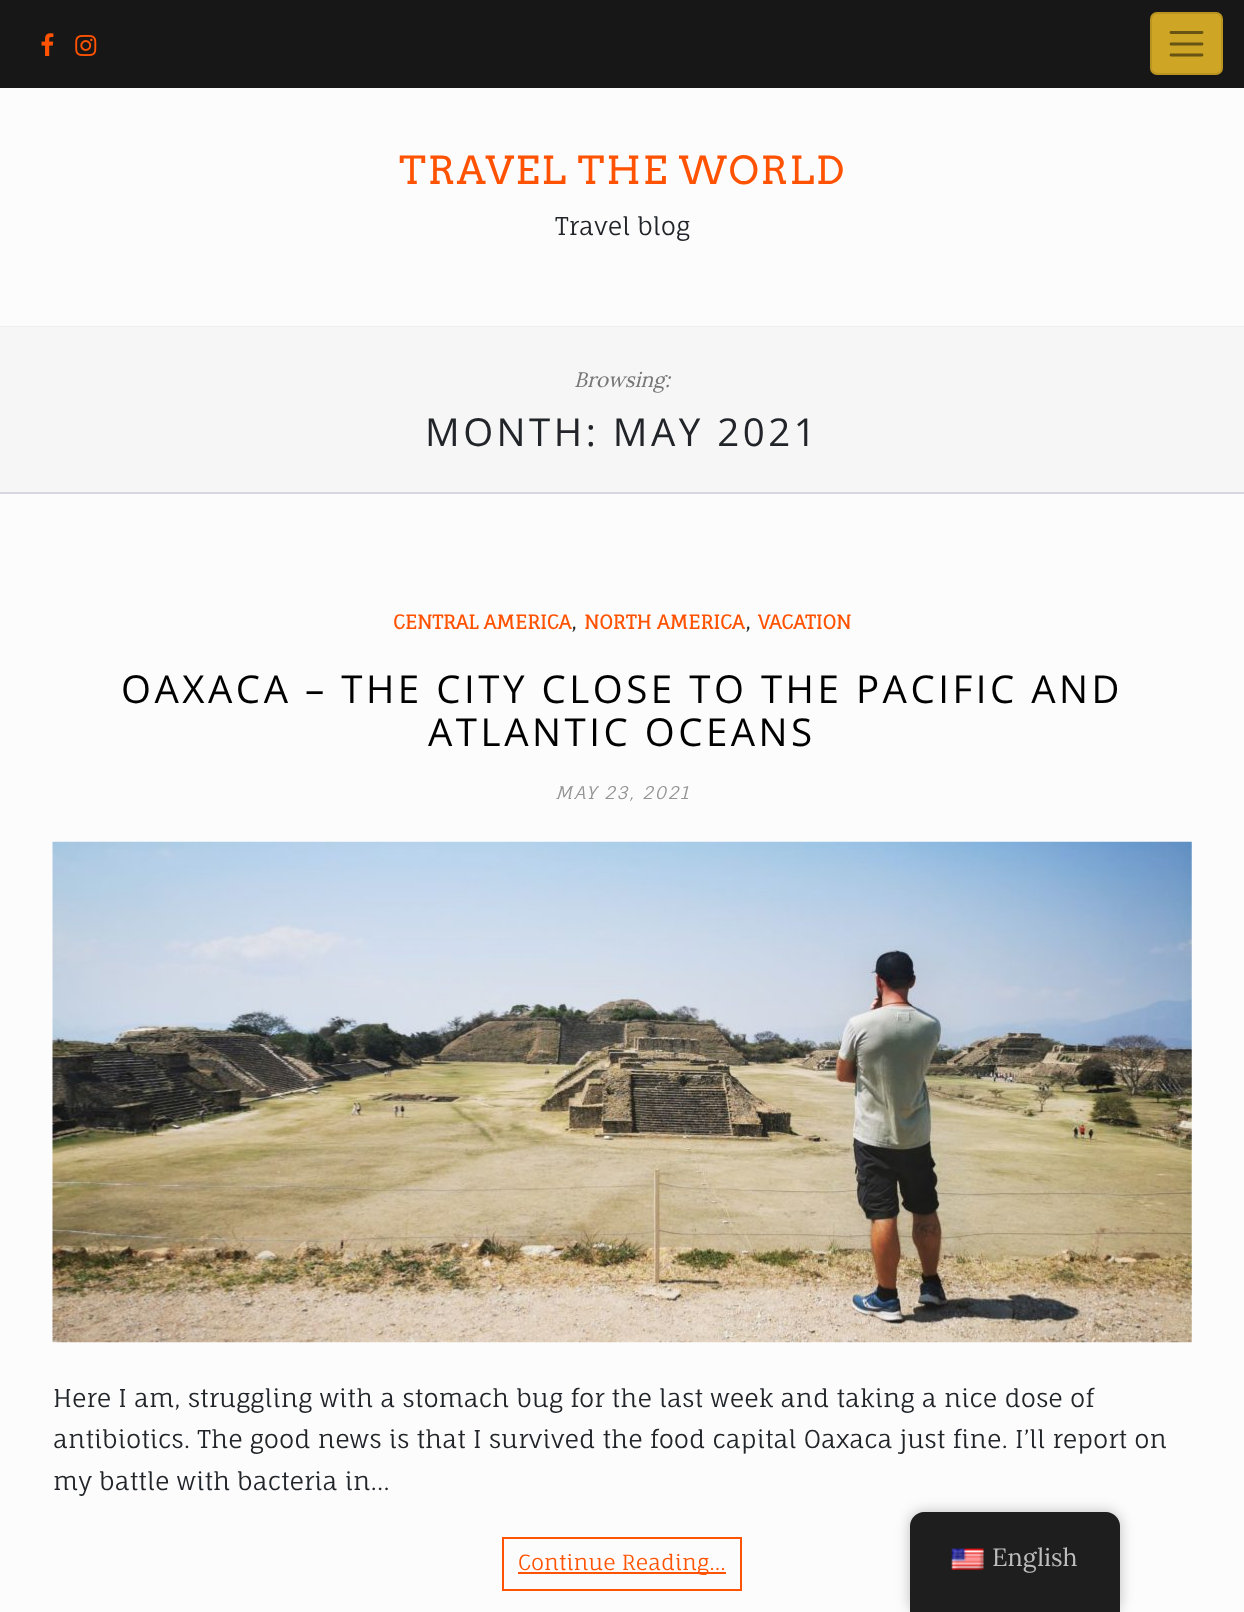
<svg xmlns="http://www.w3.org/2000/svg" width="1244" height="1612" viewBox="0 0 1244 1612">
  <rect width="100%" height="100%" fill="rgb(252,252,252)"/>
  <rect x="0" y="0" width="1244" height="88" fill="rgb(23,23,23)"/>
  <image x="41" y="33" width="13" height="23" href="pic1.png"/>
  <image x="75" y="35" width="22" height="21" href="pic2.png"/>
  <rect x="1150" y="12" width="73" height="63" rx="7" fill="rgb(206,165,37)"/>
  <rect x="1151" y="13" width="71" height="61" rx="6" fill="none" stroke="rgba(0,0,0,0.1)" stroke-width="2"/>
  <path d="M1171 32.5H1202M1171 44H1202M1171 55H1202" fill="none" stroke="rgb(103,83,19)" stroke-width="2.8" stroke-linecap="round"/>
  <rect x="0" y="326" width="1244" height="1" fill="rgb(238,238,238)"/>
  <text x="399" y="184" font-family="Arvo" font-size="38.5" letter-spacing="1.75" fill="rgb(255,83,3)">TRAVEL THE WORLD</text>
  <text x="555" y="235" font-family="Fauna One" font-size="24.5" fill="rgb(33,37,41)">Travel blog</text>
  <rect x="0" y="327" width="1244" height="165" fill="rgb(246,246,246)"/>
  <rect x="0" y="492" width="1244" height="2" fill="rgb(215,215,224)"/>
  <text x="574" y="387" font-family="Lora" font-size="21" font-style="italic" fill="rgb(118,118,118)">Browsing:</text>
  <text x="425" y="446" font-family="Open Sans" font-size="38.5" letter-spacing="3.5" fill="rgb(33,37,41)">MONTH: MAY 2021</text>
  <text x="393" y="629" font-family="Fauna One" font-size="19.25" font-weight="bold" fill="rgb(255,83,3)">CENTRAL AMERICA</text>
  <text x="571" y="629" font-family="Fauna One" font-size="24.5" fill="rgb(33,37,41)">,</text>
  <text x="584" y="629" font-family="Fauna One" font-size="19.25" font-weight="bold" fill="rgb(255,83,3)">NORTH AMERICA</text>
  <text x="745" y="629" font-family="Fauna One" font-size="24.5" fill="rgb(33,37,41)">,</text>
  <text x="758" y="629" font-family="Fauna One" font-size="19.25" font-weight="bold" fill="rgb(255,83,3)">VACATION</text>
  <g font-family="Open Sans" font-size="38.5" letter-spacing="3.5" fill="rgb(0,0,0)">
    <text x="121" y="703">OAXACA – THE CITY CLOSE TO THE PACIFIC AND</text>
    <text x="428" y="746">ATLANTIC OCEANS</text>
  </g>
  <text x="555" y="799" font-family="Fauna One" font-size="17.5" font-style="italic" letter-spacing="1.75" fill="rgb(147,147,147)">MAY 23, 2021</text>
  <image x="52" y="841" width="1140" height="502" href="pic3.png"/>
  <g font-family="Fauna One" font-size="24.5" fill="rgb(33,37,41)">
    <text>
      <tspan x="53" y="1407">Here I am, struggling with a stomach bug for the last week and taking a nice dose of</tspan>
      <tspan x="53" y="1448">antibiotics. The good news is that I survived the food capital Oaxaca just fine. I’ll report on</tspan>
      <tspan x="53" y="1490">my battle with bacteria in…</tspan>
    </text>
  </g>
  <rect x="503" y="1538" width="238" height="52" fill="none" stroke="rgb(255,83,3)" stroke-width="2"/>
  <rect x="518" y="1572" width="208" height="2" fill="rgb(255,83,3)"/>
  <text x="518" y="1570" font-family="Fauna One" font-size="21" fill="rgb(255,83,3)">Continue Reading…</text>
  <rect x="910" y="1512" width="210" height="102" rx="14" fill="rgba(0,0,0,0.25)" filter="blur(7px)"/>
  <path d="M924 1512H1106C1113.5 1512 1120 1518.5 1120 1526V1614H910V1526C910 1518.5 916.5 1512 924 1512Z" fill="rgb(30,30,30)"/>
  <image x="951" y="1548" width="33" height="22" href="pic4.png"/>
  <text x="992" y="1566" font-family="Lora" font-size="25" fill="rgb(189,189,189)">English</text>
</svg>
